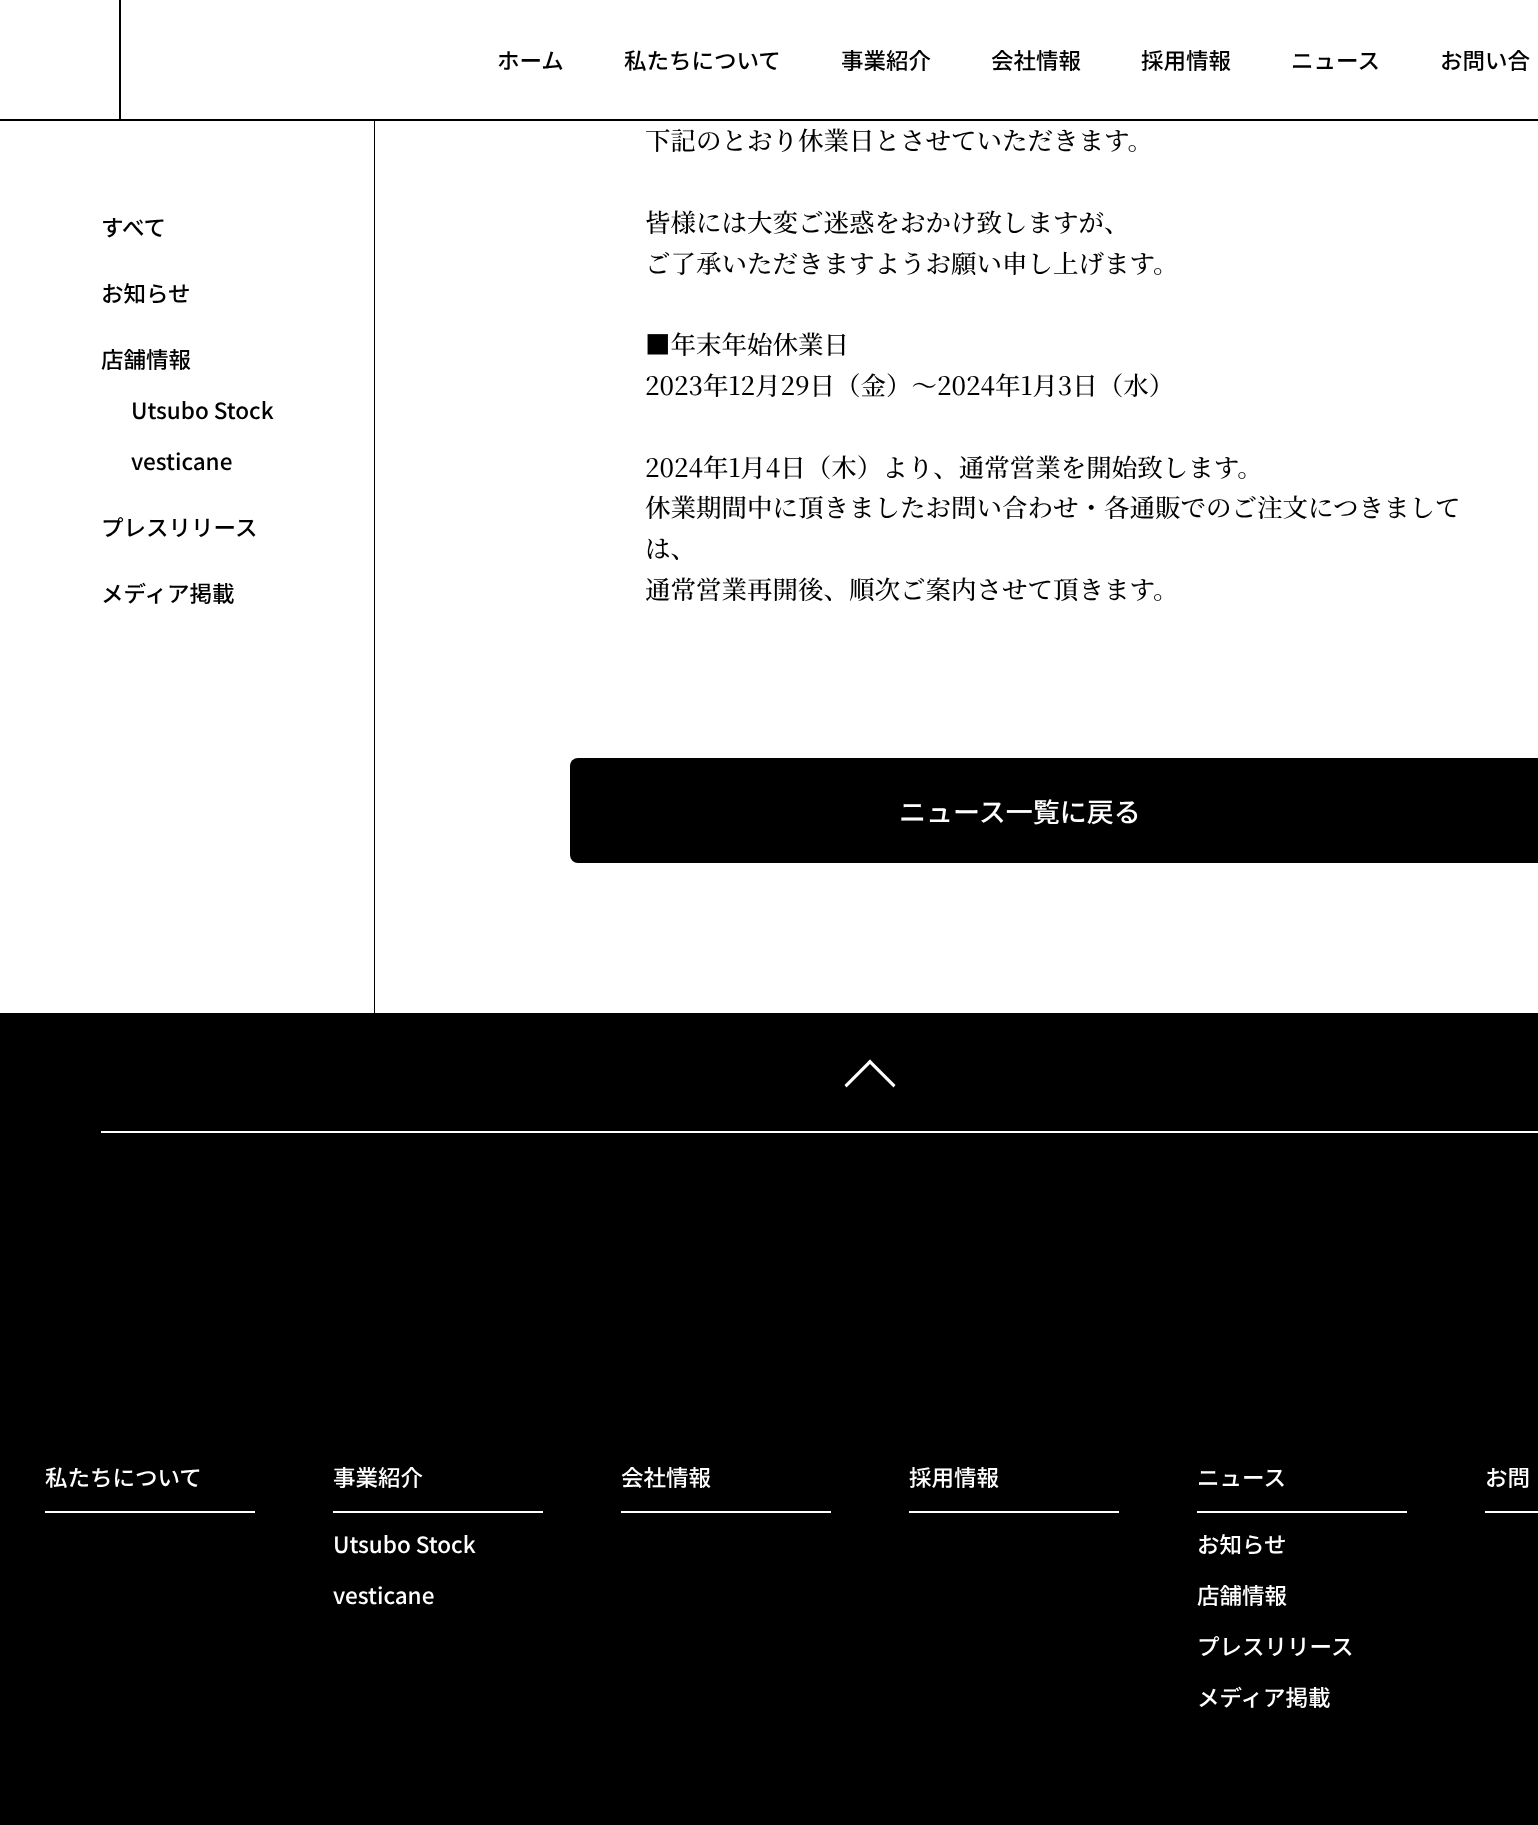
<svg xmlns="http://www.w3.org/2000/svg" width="1538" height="1825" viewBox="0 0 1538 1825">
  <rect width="100%" height="100%" fill="rgb(255,255,255)"/>
  <rect x="0" y="119" width="1538" height="2" fill="rgb(0,0,0)"/>
  <rect x="119" y="0" width="2" height="120" fill="rgb(0,0,0)"/>
  <g font-family="Noto Sans JP" font-size="22.5" font-weight="500" fill="rgb(0,0,0)">
    <text x="497" y="69">ホーム</text>
    <text x="624" y="69">私たちについて</text>
    <text x="841" y="69">事業紹介</text>
    <text x="991" y="69">会社情報</text>
    <text x="1141" y="69">採用情報</text>
    <text x="1291" y="69">ニュース</text>
    <text x="1440" y="69">お問い合</text>
  </g>
  <rect x="374" y="121" width="1" height="892" fill="rgb(0,0,0)"/>
  <g font-family="Noto Sans JP" font-size="22.5" font-weight="500" fill="rgb(0,0,0)">
    <text x="101" y="236">すべて</text>
    <text x="101" y="302">お知らせ</text>
    <text x="101" y="368">店舗情報</text>
    <text x="131" y="419">Utsubo Stock</text>
    <text x="131" y="470">vesticane</text>
    <text x="101" y="536">プレスリリース</text>
    <text x="101" y="602">メディア掲載</text>
  </g>
  <g font-family="Noto Serif JP" font-size="25.5" font-weight="500" fill="rgb(0,0,0)">
    <text x="645" y="150">下記のとおり休業日とさせていただきます。</text>
    <text>
      <tspan x="645" y="232">皆様には大変ご迷惑をおかけ致しますが、</tspan>
      <tspan x="645" y="273">ご了承いただきますようお願い申し上げます。</tspan>
    </text>
    <text>
      <tspan x="645" y="354">■年末年始休業日</tspan>
      <tspan x="645" y="395">2023年12月29日（金）～2024年1月3日（水）</tspan>
    </text>
    <text>
      <tspan x="645" y="477">2024年1月4日（木）より、通常営業を開始致します。</tspan>
      <tspan x="645" y="517">休業期間中に頂きましたお問い合わせ・各通販でのご注文につきまして</tspan>
      <tspan x="645" y="558">は、</tspan>
      <tspan x="645" y="599">通常営業再開後、順次ご案内させて頂きます。</tspan>
    </text>
  </g>
  <rect x="570" y="758" width="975" height="105" rx="8" fill="rgb(0,0,0)"/>
  <text x="899" y="822" font-family="Noto Sans JP" font-size="27" font-weight="500" fill="rgb(255,255,255)">ニュース一覧に戻る</text>
  <rect x="0" y="1013" width="1538" height="812" fill="rgb(0,0,0)"/>
  <path d="M844.5 1085L870 1059.5L872 1062L846.5 1087.5Z" fill="rgb(255,255,255)"/>
  <path d="M868 1062L870 1059.5L895.5 1085L893.5 1087.5Z" fill="rgb(255,255,255)"/>
  <rect x="101" y="1131" width="1437" height="2" fill="rgb(255,255,255)"/>
  <rect x="45" y="1511" width="210" height="2" fill="rgb(255,255,255)"/>
  <text x="45" y="1486" font-family="Noto Sans JP" font-size="22.5" font-weight="500" fill="rgb(255,255,255)">私たちについて</text>
  <rect x="333" y="1511" width="210" height="2" fill="rgb(255,255,255)"/>
  <g font-family="Noto Sans JP" font-size="22.5" font-weight="500" fill="rgb(255,255,255)">
    <text x="333" y="1486">事業紹介</text>
    <text x="333" y="1553">Utsubo Stock</text>
    <text x="333" y="1604">vesticane</text>
  </g>
  <rect x="621" y="1511" width="210" height="2" fill="rgb(255,255,255)"/>
  <text x="621" y="1486" font-family="Noto Sans JP" font-size="22.5" font-weight="500" fill="rgb(255,255,255)">会社情報</text>
  <rect x="909" y="1511" width="210" height="2" fill="rgb(255,255,255)"/>
  <text x="909" y="1486" font-family="Noto Sans JP" font-size="22.5" font-weight="500" fill="rgb(255,255,255)">採用情報</text>
  <rect x="1197" y="1511" width="210" height="2" fill="rgb(255,255,255)"/>
  <g font-family="Noto Sans JP" font-size="22.5" font-weight="500" fill="rgb(255,255,255)">
    <text x="1197" y="1486">ニュース</text>
    <text x="1197" y="1553">お知らせ</text>
    <text x="1197" y="1604">店舗情報</text>
    <text x="1197" y="1655">プレスリリース</text>
    <text x="1197" y="1706">メディア掲載</text>
  </g>
  <rect x="1485" y="1511" width="53" height="2" fill="rgb(255,255,255)"/>
  <text x="1485" y="1486" font-family="Noto Sans JP" font-size="22.5" font-weight="500" fill="rgb(255,255,255)">お問</text>
</svg>
